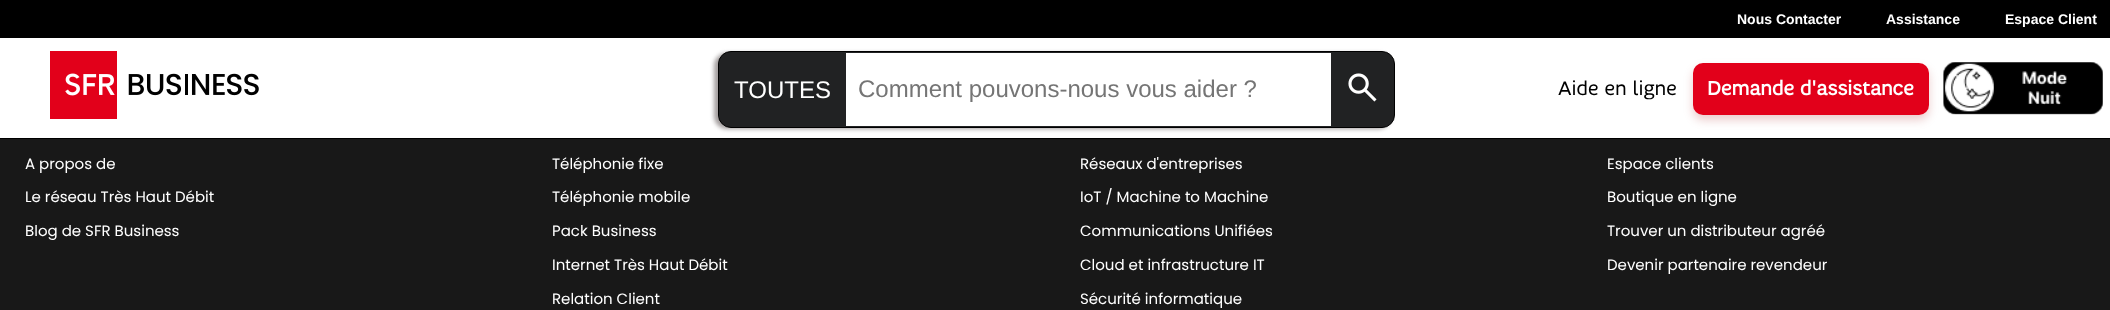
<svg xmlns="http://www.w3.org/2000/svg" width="2110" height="310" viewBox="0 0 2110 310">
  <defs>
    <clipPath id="clip1"><rect x="719" y="53" width="675" height="73" rx="11"/></clipPath>
  </defs>
  <rect width="100%" height="100%" fill="rgb(24,24,24)"/>
  <rect x="0" y="38" width="2110" height="100" fill="rgb(255,255,255)"/>
  <rect x="0" y="138" width="2110" height="1" fill="rgb(0,0,0)"/>
  <rect x="0" y="0" width="2110" height="38" fill="rgb(0,0,0)"/>
  <g font-family="Liberation Sans" font-size="14" font-weight="bold" fill="rgb(255,255,255)">
    <text x="1737" y="24">Nous Contacter</text>
    <text x="1886" y="24">Assistance</text>
    <text x="2005" y="24">Espace Client</text>
  </g>
  <image x="50" y="51" width="209" height="68" href="pic1.png"/>
  <rect x="714" y="53" width="677" height="76" rx="13" fill="rgba(108,99,99,0.63)" filter="blur(2px)"/>
  <rect x="718.5" y="51.5" width="676" height="76" rx="12.5" fill="rgb(33,34,35)" stroke="rgb(0,0,0)"/>
  <g clip-path="url(#clip1)">
    <rect x="719" y="61" width="127" height="57" fill="rgb(33,34,35)"/>
  </g>
  <text x="734" y="98" font-family="Liberation Sans" font-size="24" fill="rgb(255,255,255)">TOUTES</text>
  <rect x="846" y="53" width="485" height="73" fill="rgb(255,255,255)"/>
  <text x="858" y="97" font-family="Liberation Sans" font-size="24" fill="rgb(117,117,117)">Comment pouvons-nous vous aider ?</text>
  <image x="1348" y="73" width="29" height="29" href="pic2.png"/>
  <text x="1558" y="95" font-family="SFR" font-size="20" fill="rgb(0,0,0)">Aide en ligne</text>
  <rect x="1693" y="68" width="236" height="52" rx="10" fill="rgba(153,0,0,0.2)" filter="blur(5px)"/>
  <rect x="1693" y="63" width="236" height="52" rx="10" fill="rgb(226,0,26)"/>
  <text x="1707" y="95" font-family="SFR" font-size="20" font-weight="bold" fill="rgb(255,255,255)">Demande d'assistance</text>
  <rect x="1944" y="63" width="159" height="51" rx="11" fill="rgb(239,239,239)"/>
  <image x="1943" y="62" width="160" height="53" href="pic3.png"/>
  <image x="1943" y="62" width="160" height="52" href="pic4.png"/>
  <g font-family="Poppins" font-size="15" fill="rgb(255,255,255)">
    <text x="25" y="169">A propos de</text>
    <text x="25" y="202">Le réseau Très Haut Débit</text>
    <text x="25" y="236">Blog de SFR Business</text>
    <text x="552" y="169">Téléphonie fixe</text>
    <text x="552" y="202">Téléphonie mobile</text>
    <text x="552" y="236">Pack Business</text>
    <text x="552" y="270">Internet Très Haut Débit</text>
    <text x="552" y="304">Relation Client</text>
    <text x="1080" y="169">Réseaux d'entreprises</text>
    <text x="1080" y="202">IoT / Machine to Machine</text>
    <text x="1080" y="236">Communications Unifiées</text>
    <text x="1080" y="270">Cloud et infrastructure IT</text>
    <text x="1080" y="304">Sécurité informatique</text>
    <text x="1607" y="169">Espace clients</text>
    <text x="1607" y="202">Boutique en ligne</text>
    <text x="1607" y="236">Trouver un distributeur agréé</text>
    <text x="1607" y="270">Devenir partenaire revendeur</text>
  </g>
</svg>
